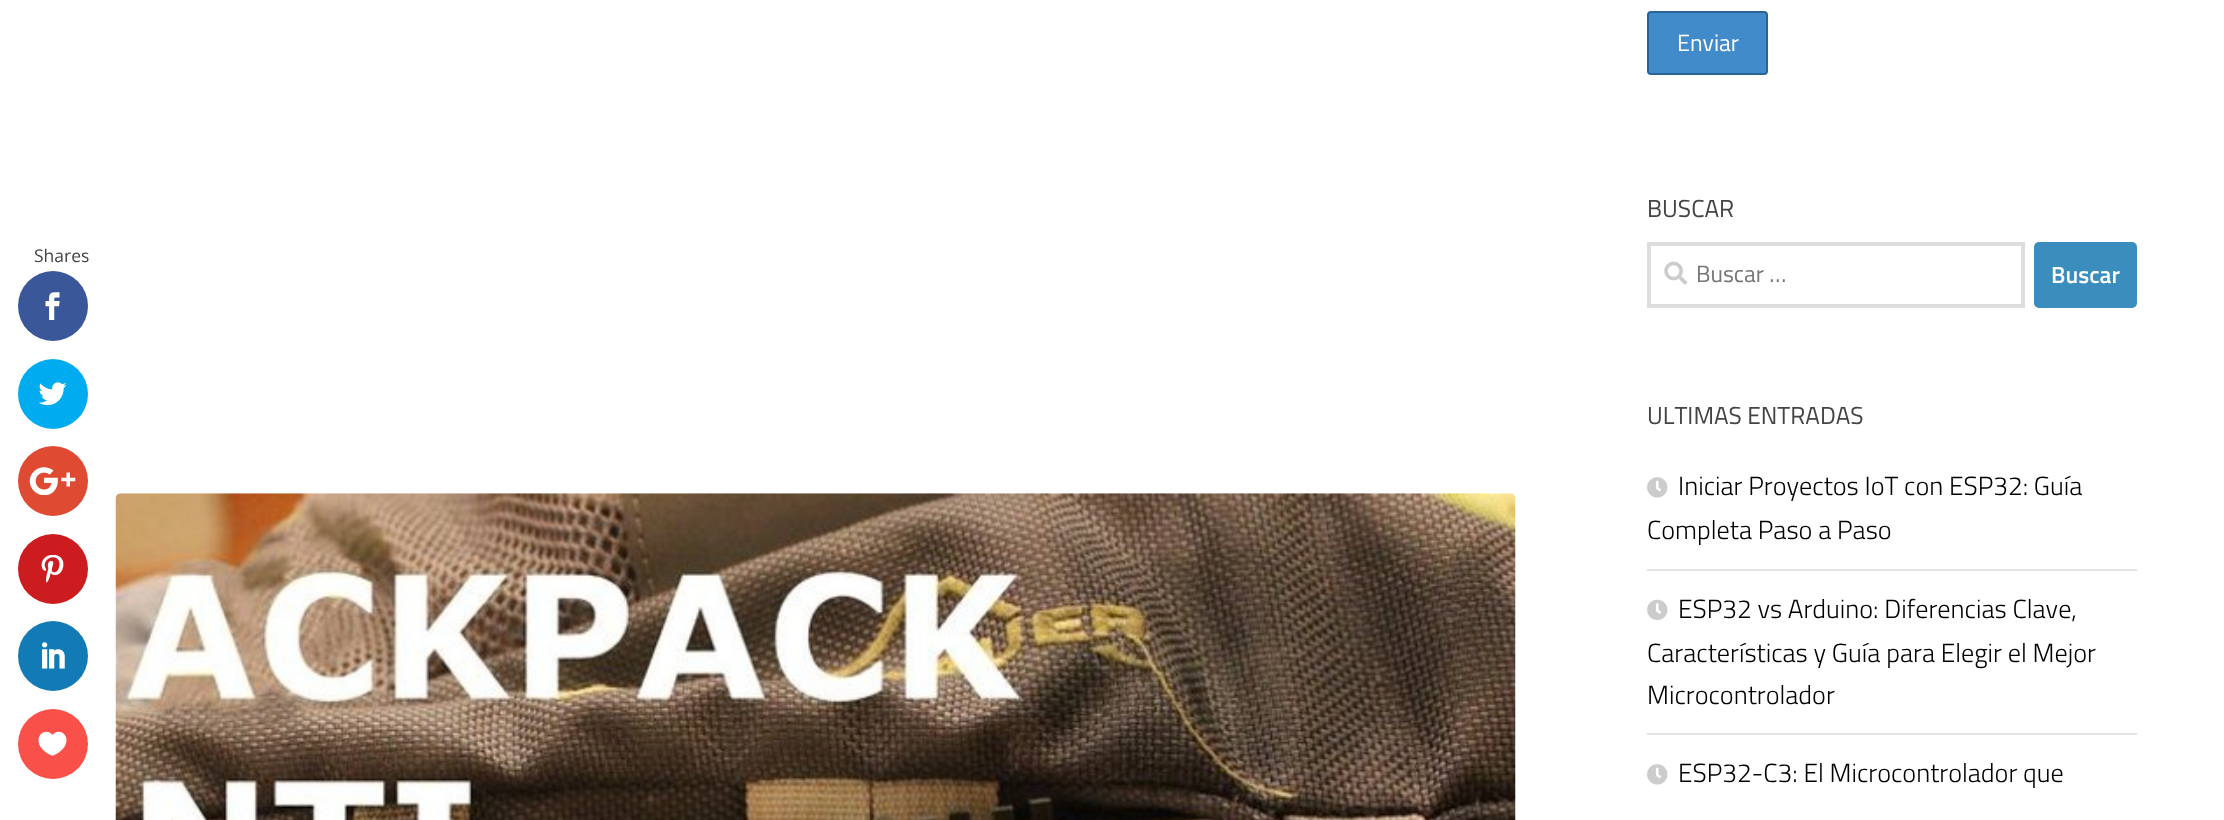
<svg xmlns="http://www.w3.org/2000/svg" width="2224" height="820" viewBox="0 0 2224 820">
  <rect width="100%" height="100%" fill="rgb(255,255,255)"/>
  <text x="34" y="262" font-family="Open Sans" font-size="17.5" fill="rgb(68,68,68)">Shares</text>
  <circle cx="53" cy="306" r="35" fill="rgb(58,87,154)"/>
  <image x="45" y="292" width="15" height="28" href="pic1.png"/>
  <circle cx="53" cy="394" r="35" fill="rgb(0,171,240)"/>
  <image x="38" y="382" width="29" height="24" href="pic2.png"/>
  <circle cx="53" cy="481" r="35" fill="rgb(223,74,50)"/>
  <image x="29" y="467" width="47" height="28" href="pic3.png"/>
  <circle cx="53" cy="569" r="35" fill="rgb(205,28,31)"/>
  <image x="41" y="555" width="23" height="28" href="pic4.png"/>
  <circle cx="53" cy="656" r="35" fill="rgb(18,123,182)"/>
  <image x="42" y="642" width="23" height="27" href="pic5.png"/>
  <circle cx="53" cy="744" r="35" fill="rgb(249,81,73)"/>
  <image x="38" y="731" width="29" height="25" href="pic6.png"/>
  <image x="115" y="493" width="1401" height="327" href="pic7.png"/>
  <rect x="1648" y="12" width="119" height="62" rx="3" fill="rgb(66,139,202)" stroke="rgb(42,100,150)" stroke-width="2"/>
  <text x="1677" y="51" font-family="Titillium" font-size="23.5" fill="rgb(255,255,255)">Enviar</text>
  <text x="1647" y="217" font-family="Titillium" font-size="24.5" fill="rgb(68,68,68)">BUSCAR</text>
  <rect x="1649" y="244" width="374" height="62" fill="none" stroke="rgb(221,221,221)" stroke-width="4"/>
  <image x="1664" y="261" width="24" height="24" href="pic8.png"/>
  <text x="1696" y="282" font-family="Titillium" font-size="23.5" fill="rgb(117,117,117)">Buscar …</text>
  <rect x="2034" y="242" width="103" height="66" rx="5" fill="rgb(59,141,189)"/>
  <text x="2051" y="283" font-family="Titillium" font-size="23.5" font-weight="600" fill="rgb(255,255,255)">Buscar</text>
  <text x="1647" y="424" font-family="Titillium" font-size="24.5" fill="rgb(68,68,68)">ULTIMAS ENTRADAS</text>
  <rect x="1647" y="569" width="490" height="2" fill="rgb(228,228,228)"/>
  <image x="1647" y="477" width="21" height="21" href="pic9.png"/>
  <g font-family="Titillium" font-size="26.25" font-weight="300" fill="rgb(0,0,0)">
    <text x="1678" y="495">Iniciar Proyectos IoT con ESP32: Guía</text>
    <text x="1647" y="539">Completa Paso a Paso</text>
  </g>
  <rect x="1647" y="733" width="490" height="2" fill="rgb(228,228,228)"/>
  <image x="1647" y="599" width="21" height="21" href="pic10.png"/>
  <g font-family="Titillium" font-size="26.25" font-weight="300" fill="rgb(0,0,0)">
    <text x="1678" y="618">ESP32 vs Arduino: Diferencias Clave,</text>
    <text>
      <tspan x="1647" y="662">Características y Guía para Elegir el Mejor</tspan>
      <tspan x="1647" y="704">Microcontrolador</tspan>
    </text>
  </g>
  <image x="1647" y="764" width="21" height="21" href="pic9.png"/>
  <text x="1678" y="782" font-family="Titillium" font-size="26.25" font-weight="300" fill="rgb(0,0,0)">ESP32-C3: El Microcontrolador que</text>
</svg>
